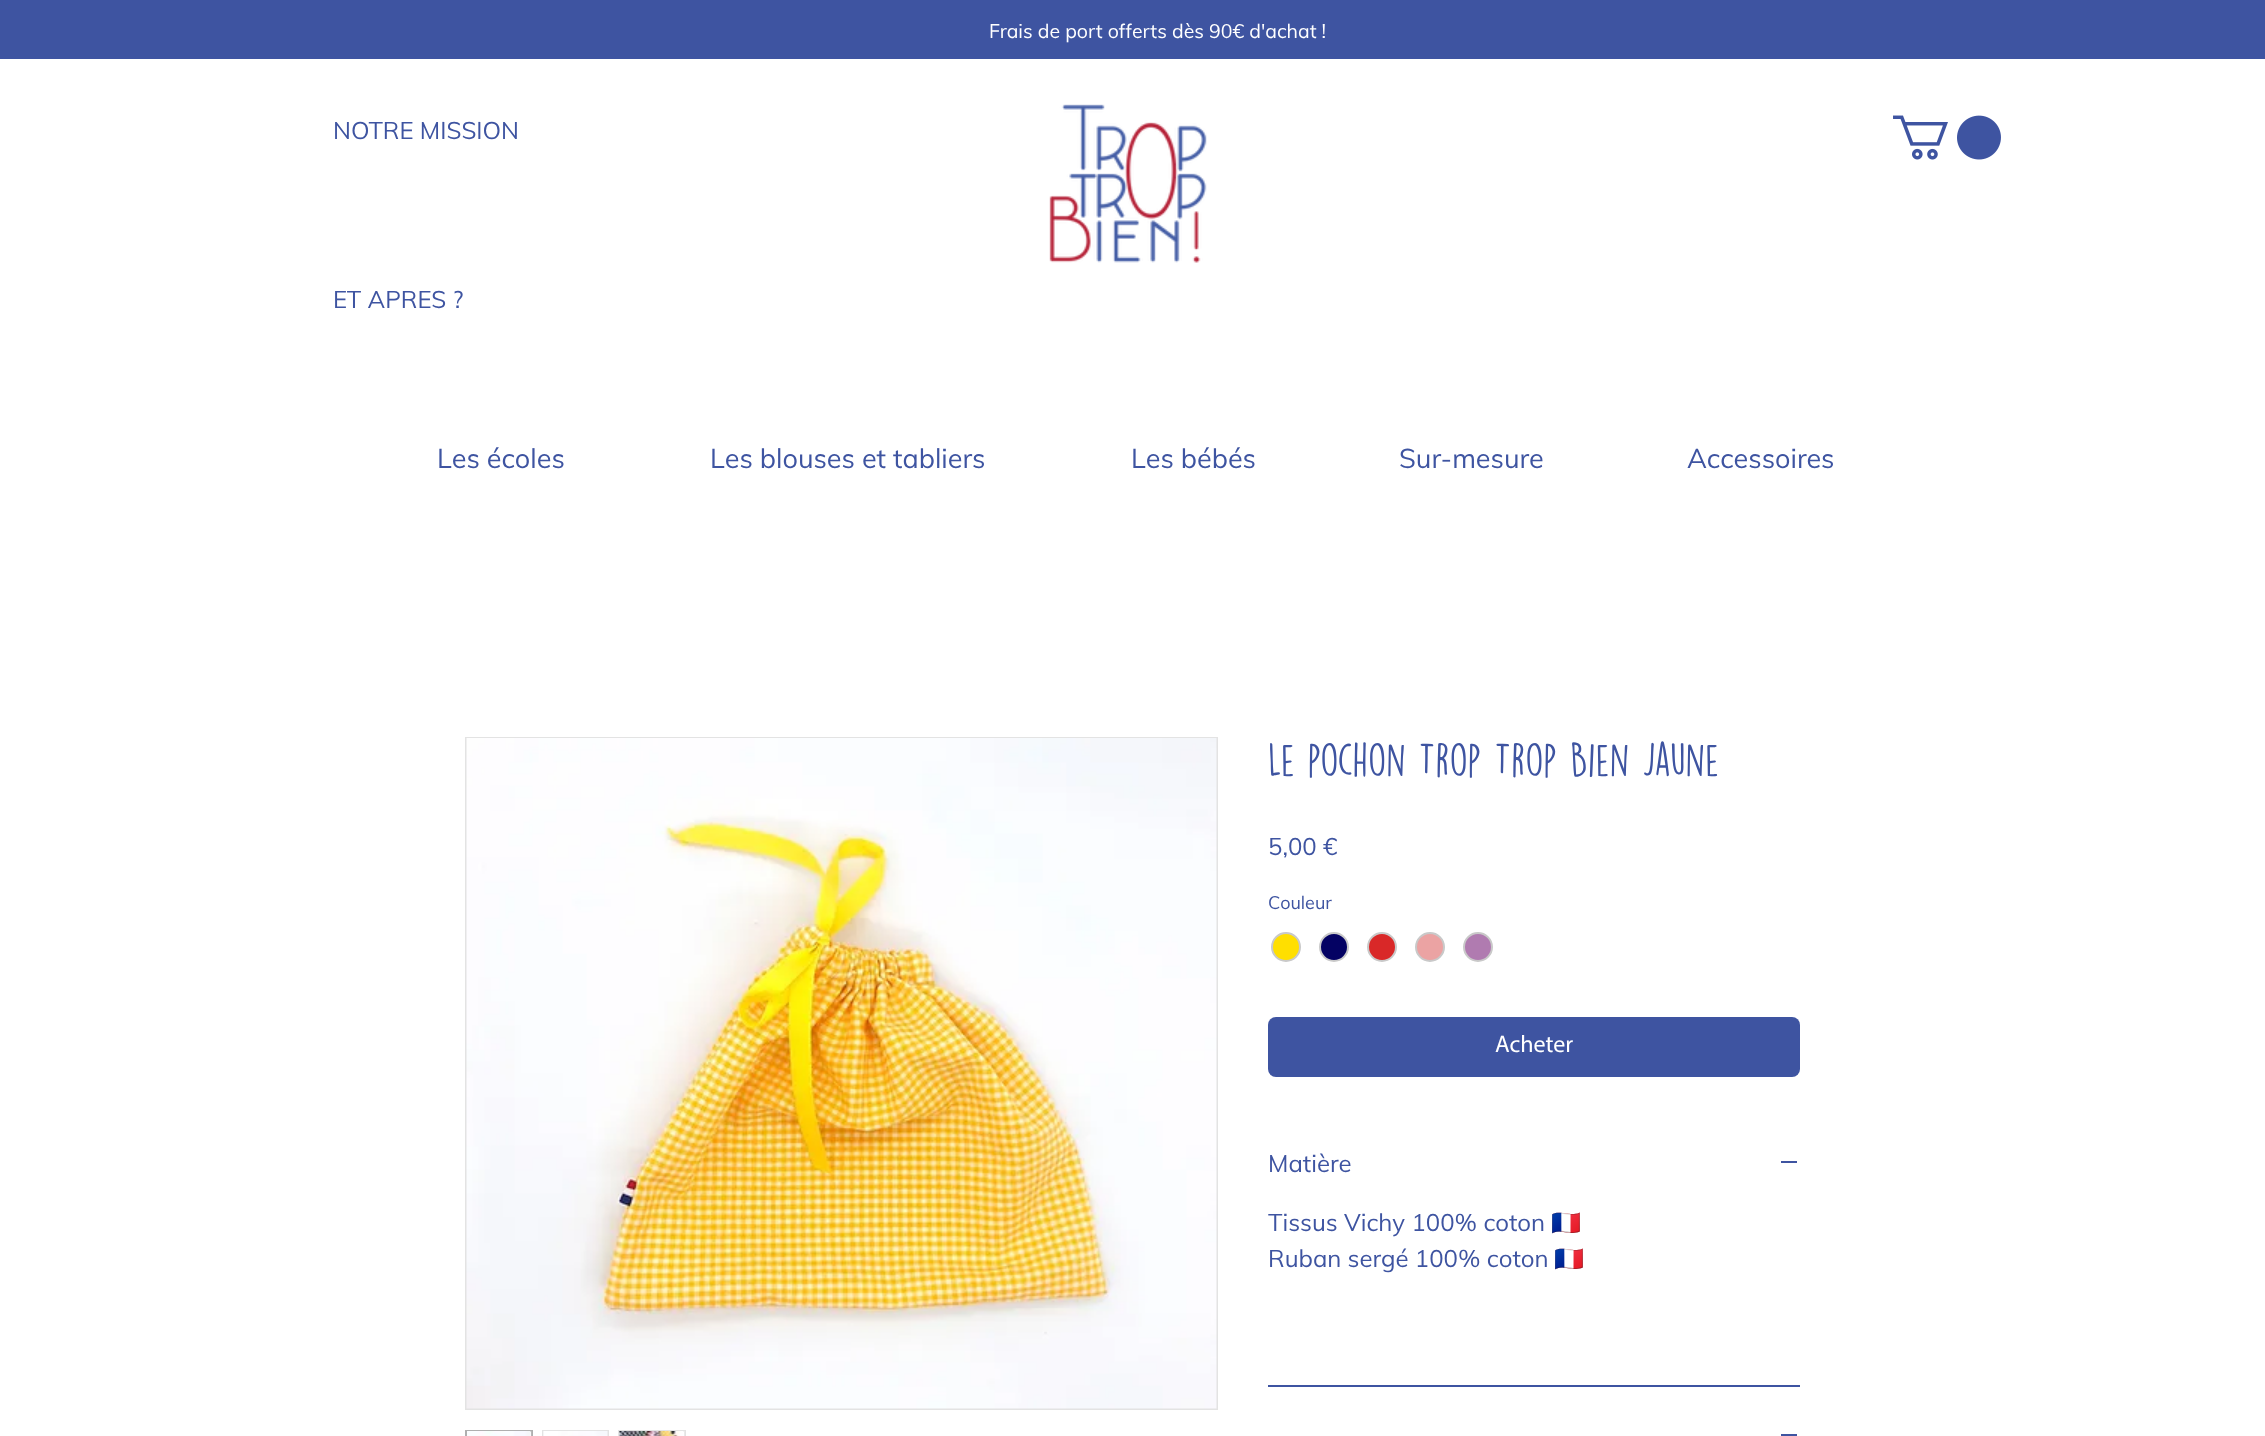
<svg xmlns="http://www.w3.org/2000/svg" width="2265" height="1436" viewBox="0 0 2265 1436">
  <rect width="100%" height="100%" fill="rgb(255,255,255)"/>
  <rect x="0" y="0" width="2265" height="59" fill="rgb(62,84,161)"/>
  <text x="989" y="38" font-family="Muli" font-size="19.5" fill="rgb(255,255,255)">Frais de port offerts dès 90€ d'achat !</text>
  <text x="333" y="139" font-family="Muli" font-size="24" fill="rgb(62,84,161)">NOTRE MISSION</text>
  <image x="1049" y="104" width="158" height="159" href="pic1.png"/>
  <image x="1893" y="115" width="108" height="45" href="pic2.png"/>
  <text x="333" y="308" font-family="Muli" font-size="24" fill="rgb(62,84,161)">ET APRES ?</text>
  <g font-family="Muli" font-size="27" fill="rgb(62,84,161)">
    <text x="437" y="468">Les écoles</text>
    <text x="710" y="468">Les blouses et tabliers</text>
    <text x="1131" y="468">Les bébés</text>
    <text x="1399" y="468">Sur-mesure</text>
    <text x="1687" y="468">Accessoires</text>
  </g>
  <rect x="466" y="738" width="751" height="671" fill="none" stroke="rgb(227,227,227)" stroke-width="2"/>
  <image x="466" y="738" width="751" height="671" href="pic3.png"/>
  <rect x="466" y="1431" width="66" height="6" fill="none" stroke="rgb(175,175,175)" stroke-width="2"/>
  <image x="467" y="1431" width="65" height="5" href="pic4.png"/>
  <rect x="543" y="1431" width="65" height="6" fill="none" stroke="rgb(227,227,227)" stroke-width="2"/>
  <image x="543" y="1431" width="65" height="5" href="pic5.png"/>
  <rect x="619" y="1431" width="66" height="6" fill="none" stroke="rgb(227,227,227)" stroke-width="2"/>
  <image x="619" y="1431" width="66" height="5" href="pic6.png"/>
  <text x="1268" y="777" font-family="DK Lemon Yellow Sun" font-size="42" fill="rgb(62,84,161)">Le pochon Trop Trop Bien Jaune</text>
  <text x="1268" y="855" font-family="Muli" font-size="24" fill="rgb(62,84,161)">5,00 €</text>
  <text x="1268" y="909" font-family="Muli" font-size="18" fill="rgb(62,84,161)">Couleur</text>
  <circle cx="1286" cy="947" r="14" fill="rgb(255,223,0)" stroke="rgb(201,201,201)" stroke-width="2"/>
  <circle cx="1334" cy="947" r="14" fill="rgb(4,2,99)" stroke="rgb(201,201,201)" stroke-width="2"/>
  <circle cx="1382" cy="947" r="14" fill="rgb(217,40,40)" stroke="rgb(201,201,201)" stroke-width="2"/>
  <circle cx="1430" cy="947" r="14" fill="rgb(235,163,163)" stroke="rgb(201,201,201)" stroke-width="2"/>
  <circle cx="1478" cy="947" r="14" fill="rgb(176,123,176)" stroke="rgb(201,201,201)" stroke-width="2"/>
  <rect x="1268" y="1017" width="532" height="60" rx="8" fill="rgb(62,84,161)"/>
  <text x="1495" y="1052" font-family="Myriad" font-size="24" fill="rgb(255,255,255)">Acheter</text>
  <rect x="1268" y="1385" width="532" height="2" fill="rgb(62,84,161)"/>
  <text x="1268" y="1172" font-family="Muli" font-size="24" fill="rgb(62,84,161)">Matière</text>
  <rect x="1781" y="1161" width="16" height="2" fill="rgb(62,84,161)"/>
  <text x="1268" y="1231" font-family="Muli" font-size="24" fill="rgb(62,84,161)">Tissus Vichy 100% coton</text>
  <text x="1551" y="1231" font-family="Noto Color Emoji" font-size="24" fill="rgb(62,84,161)">🇫🇷</text>
  <text x="1268" y="1267" font-family="Muli" font-size="24" fill="rgb(62,84,161)">Ruban sergé 100% coton</text>
  <text x="1554" y="1267" font-family="Noto Color Emoji" font-size="24" fill="rgb(62,84,161)">🇫🇷</text>
  <rect x="1781" y="1434" width="16" height="2" fill="rgb(62,84,161)"/>
</svg>
